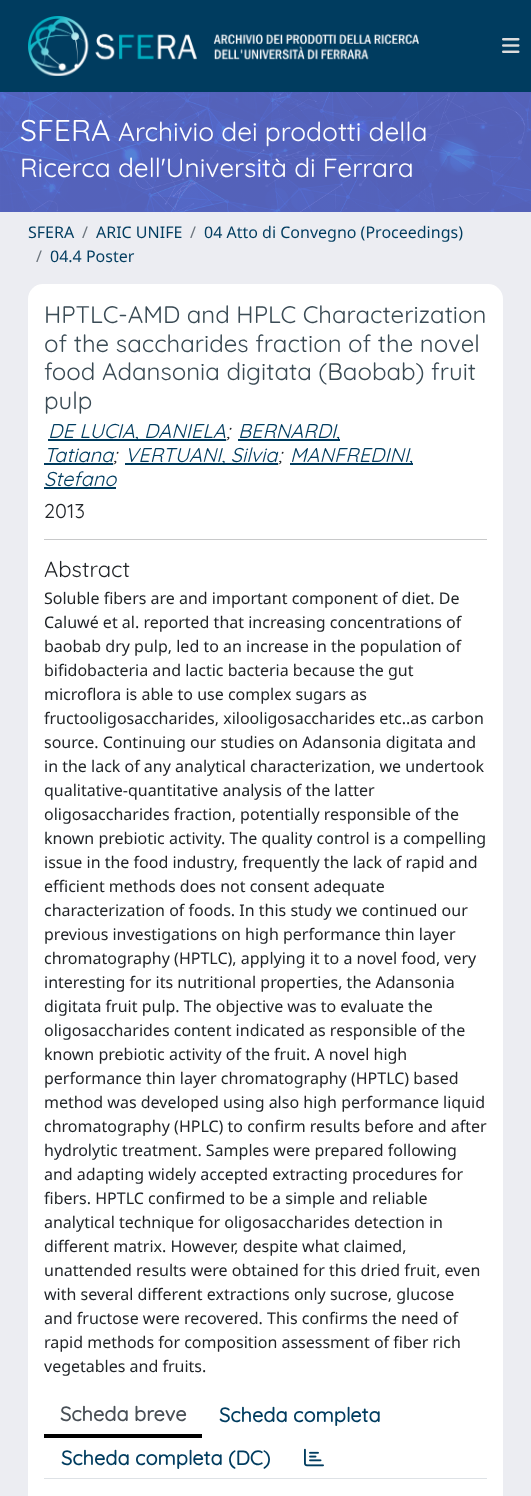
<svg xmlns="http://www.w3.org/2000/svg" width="531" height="1496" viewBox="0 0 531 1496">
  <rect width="100%" height="100%" fill="rgb(236,237,242)"/>
  <rect x="0" y="0" width="531" height="92" fill="rgb(0,60,95)"/>
  <image x="28" y="16" width="391" height="60" href="pic1.png"/>
  <image x="502" y="38" width="18" height="15" href="pic2.png"/>
  <image x="0" y="92" width="531" height="120" href="pic3.png"/>
  <text x="20" y="141" font-family="Quicksand" font-size="30" fill="rgb(255,255,255)">SFERA</text>
  <g font-family="Quicksand" font-size="26.25" fill="rgb(255,255,255)">
    <text x="118" y="141">Archivio dei prodotti della</text>
    <text x="20" y="177">Ricerca dell'Università di Ferrara</text>
  </g>
  <text x="28" y="238" font-family="Noto Sans" font-size="16" fill="rgb(0,60,95)">SFERA</text>
  <text x="82" y="238" font-family="Noto Sans" font-size="16" fill="rgb(108,117,125)">/</text>
  <text x="96" y="238" font-family="Noto Sans" font-size="16" fill="rgb(0,60,95)">ARIC UNIFE</text>
  <text x="190" y="238" font-family="Noto Sans" font-size="16" fill="rgb(108,117,125)">/</text>
  <text x="204" y="238" font-family="Noto Sans" font-size="16" fill="rgb(0,60,95)">04 Atto di Convegno (Proceedings)</text>
  <text x="36" y="262" font-family="Noto Sans" font-size="16" fill="rgb(108,117,125)">/</text>
  <text x="50" y="262" font-family="Noto Sans" font-size="16" fill="rgb(0,60,95)">04.4 Poster</text>
  <rect x="28" y="284" width="475" height="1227" rx="15" fill="rgb(255,255,255)"/>
  <g font-family="Quicksand" font-size="24" fill="rgb(58,75,85)">
    <text>
      <tspan x="44" y="323">HPTLC-AMD and HPLC Characterization</tspan>
      <tspan x="44" y="352">of the saccharides fraction of the novel</tspan>
      <tspan x="44" y="380">food Adansonia digitata (Baobab) fruit</tspan>
      <tspan x="44" y="409">pulp</tspan>
    </text>
  </g>
  <rect x="48" y="439" width="178" height="2" fill="rgb(0,60,95)"/>
  <text x="48" y="438" font-family="Quicksand" font-size="20" font-style="italic" fill="rgb(0,60,95)">DE LUCIA, DANIELA</text>
  <text x="226" y="438" font-family="Quicksand" font-size="20" font-style="italic" fill="rgb(33,37,41)">;</text>
  <rect x="238" y="439" width="102" height="2" fill="rgb(0,60,95)"/>
  <g font-family="Quicksand" font-size="20" font-style="italic" fill="rgb(0,60,95)">
    <text x="238" y="438">BERNARDI,</text>
    <text x="44" y="462">Tatiana</text>
  </g>
  <text x="113" y="462" font-family="Quicksand" font-size="20" font-style="italic" fill="rgb(33,37,41)">;</text>
  <rect x="44" y="463" width="69" height="2" fill="rgb(0,60,95)"/>
  <rect x="125" y="463" width="153" height="2" fill="rgb(0,60,95)"/>
  <text x="125" y="462" font-family="Quicksand" font-size="20" font-style="italic" fill="rgb(0,60,95)">VERTUANI, Silvia</text>
  <text x="278" y="462" font-family="Quicksand" font-size="20" font-style="italic" fill="rgb(33,37,41)">;</text>
  <rect x="290" y="463" width="123" height="2" fill="rgb(0,60,95)"/>
  <g font-family="Quicksand" font-size="20" font-style="italic" fill="rgb(0,60,95)">
    <text x="290" y="462">MANFREDINI,</text>
    <text x="44" y="486">Stefano</text>
  </g>
  <rect x="44" y="487" width="72" height="2" fill="rgb(0,60,95)"/>
  <text x="44" y="518" font-family="Quicksand" font-size="20" fill="rgb(33,37,41)">2013</text>
  <rect x="44" y="539" width="443" height="1" fill="rgb(200,201,202)"/>
  <text x="44" y="577" font-family="Quicksand" font-size="22" fill="rgb(33,37,41)">Abstract</text>
  <g font-family="Noto Sans" font-size="16" fill="rgb(33,37,41)">
    <text>
      <tspan x="44" y="604">Soluble fibers are and important component of diet. De</tspan>
      <tspan x="44" y="628">Caluwé et al. reported that increasing concentrations of</tspan>
      <tspan x="44" y="652">baobab dry pulp, led to an increase in the population of</tspan>
      <tspan x="44" y="676">bifidobacteria and lactic bacteria because the gut</tspan>
      <tspan x="44" y="700">microflora is able to use complex sugars as</tspan>
      <tspan x="44" y="724">fructooligosaccharides, xilooligosaccharides etc..as carbon</tspan>
      <tspan x="44" y="748">source. Continuing our studies on Adansonia digitata and</tspan>
      <tspan x="44" y="772">in the lack of any analytical characterization, we undertook</tspan>
      <tspan x="44" y="796">qualitative-quantitative analysis of the latter</tspan>
      <tspan x="44" y="820">oligosaccharides fraction, potentially responsible of the</tspan>
      <tspan x="44" y="844">known prebiotic activity. The quality control is a compelling</tspan>
      <tspan x="44" y="868">issue in the food industry, frequently the lack of rapid and</tspan>
      <tspan x="44" y="892">efficient methods does not consent adequate</tspan>
      <tspan x="44" y="916">characterization of foods. In this study we continued our</tspan>
      <tspan x="44" y="940">previous investigations on high performance thin layer</tspan>
      <tspan x="44" y="964">chromatography (HPTLC), applying it to a novel food, very</tspan>
      <tspan x="44" y="988">interesting for its nutritional properties, the Adansonia</tspan>
      <tspan x="44" y="1012">digitata fruit pulp. The objective was to evaluate the</tspan>
      <tspan x="44" y="1036">oligosaccharides content indicated as responsible of the</tspan>
      <tspan x="44" y="1060">known prebiotic activity of the fruit. A novel high</tspan>
      <tspan x="44" y="1084">performance thin layer chromatography (HPTLC) based</tspan>
      <tspan x="44" y="1108">method was developed using also high performance liquid</tspan>
      <tspan x="44" y="1132">chromatography (HPLC) to confirm results before and after</tspan>
      <tspan x="44" y="1156">hydrolytic treatment. Samples were prepared following</tspan>
      <tspan x="44" y="1180">and adapting widely accepted extracting procedures for</tspan>
      <tspan x="44" y="1204">fibers. HPTLC confirmed to be a simple and reliable</tspan>
      <tspan x="44" y="1228">analytical technique for oligosaccharides detection in</tspan>
      <tspan x="44" y="1252">different matrix. However, despite what claimed,</tspan>
      <tspan x="44" y="1276">unattended results were obtained for this dried fruit, even</tspan>
      <tspan x="44" y="1300">with several different extractions only sucrose, glucose</tspan>
      <tspan x="44" y="1324">and fructose were recovered. This confirms the need of</tspan>
      <tspan x="44" y="1348">rapid methods for composition assessment of fiber rich</tspan>
      <tspan x="44" y="1372">vegetables and fruits.</tspan>
    </text>
  </g>
  <rect x="44" y="1478" width="443" height="1" fill="rgb(222,226,230)"/>
  <rect x="44" y="1434" width="158" height="4" fill="rgb(0,0,0)"/>
  <text x="60" y="1421" font-family="Quicksand" font-size="20" font-weight="bold" fill="rgb(73,80,87)">Scheda breve</text>
  <g font-family="Quicksand" font-size="20" font-weight="bold" fill="rgb(0,60,95)">
    <text x="219" y="1422">Scheda completa</text>
    <text x="61" y="1465">Scheda completa (DC)</text>
  </g>
  <image x="304" y="1448" width="20" height="19" href="pic4.png"/>
</svg>
